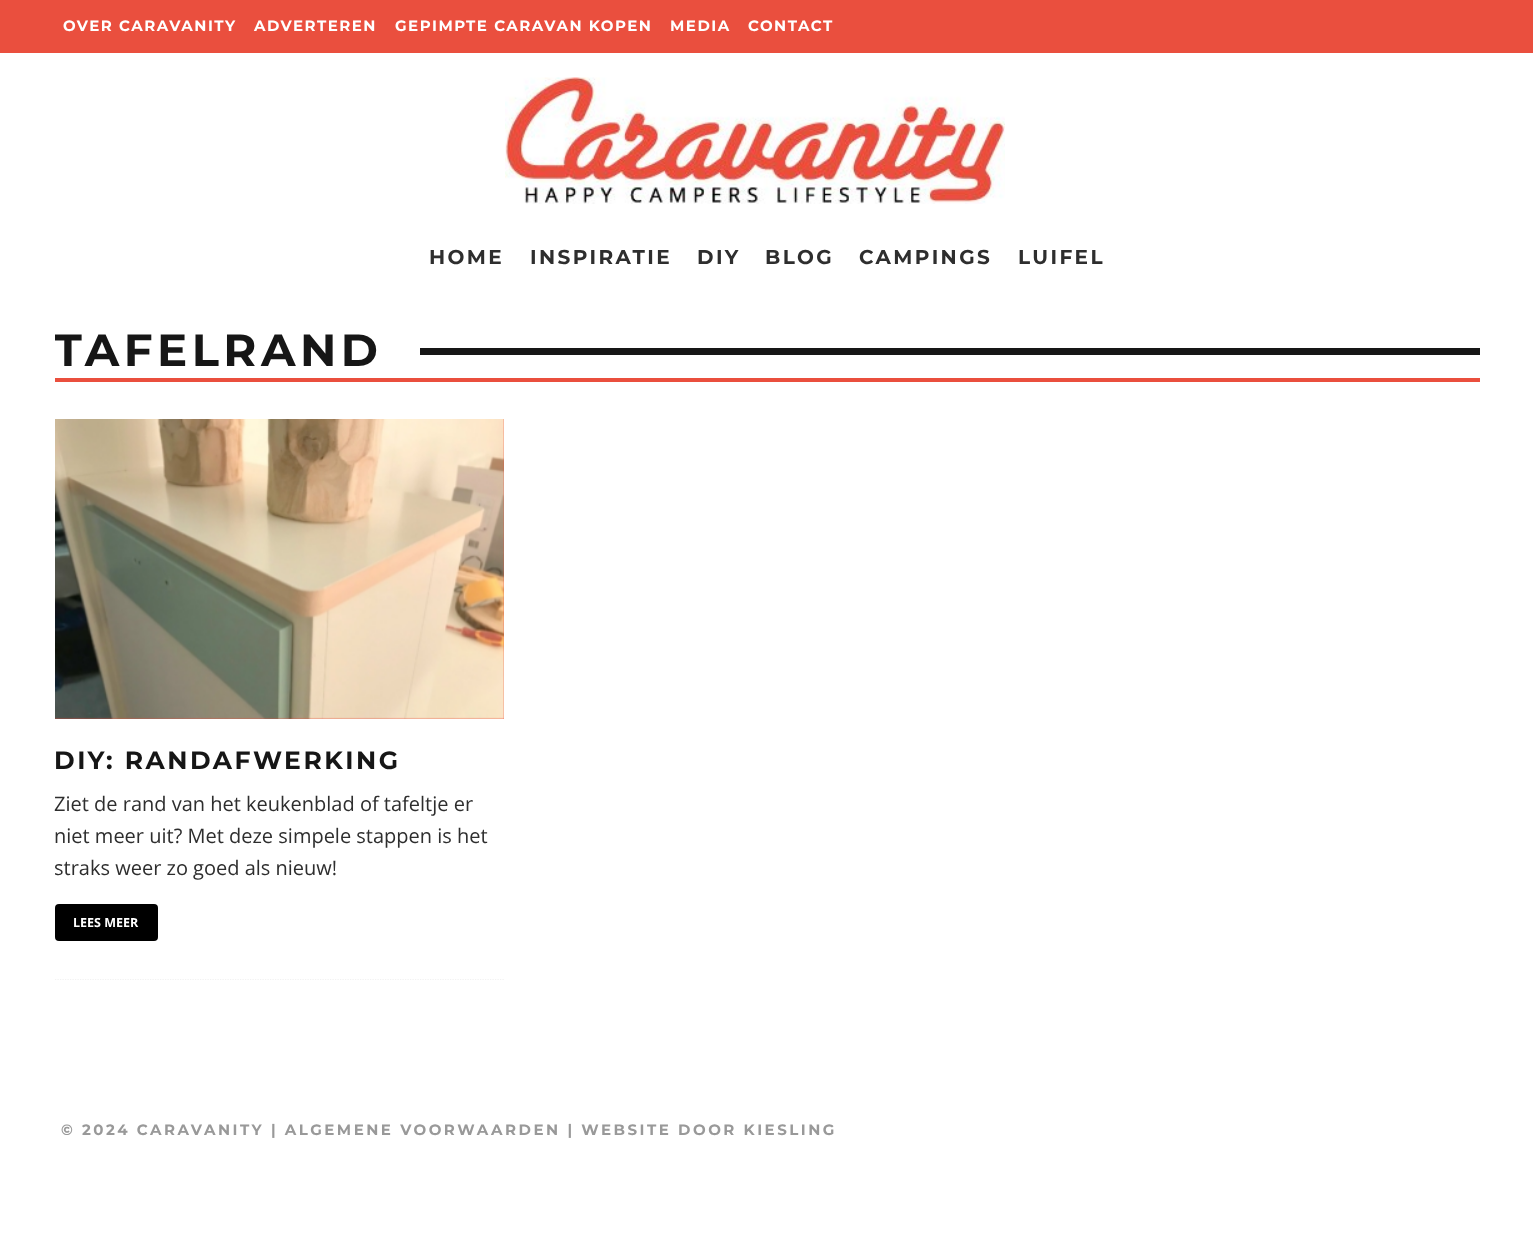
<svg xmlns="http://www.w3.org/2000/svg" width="1533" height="1260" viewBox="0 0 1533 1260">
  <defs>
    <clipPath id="clip1"><rect x="55" y="324" width="1425" height="54"/></clipPath>
  </defs>
  <rect width="100%" height="100%" fill="rgb(255,255,255)"/>
  <rect x="0" y="0" width="1533" height="53" fill="rgb(234,79,62)"/>
  <g font-family="Montserrat" font-size="15" font-weight="bold" letter-spacing="1.5" fill="rgb(255,255,255)">
    <text x="63" y="31">OVER CARAVANITY</text>
    <text x="254" y="31">ADVERTEREN</text>
    <text x="395" y="31">GEPIMPTE CARAVAN KOPEN</text>
    <text x="670" y="31">MEDIA</text>
    <text x="748" y="31">CONTACT</text>
  </g>
  <image x="505" y="77" width="500" height="127" href="pic1.png"/>
  <g font-family="Montserrat" font-size="20" font-weight="bold" letter-spacing="2.4" fill="rgb(46,46,46)">
    <text x="429" y="264">HOME</text>
    <text x="530" y="264">INSPIRATIE</text>
    <text x="697" y="264">DIY</text>
    <text x="765" y="264">BLOG</text>
    <text x="859" y="264">CAMPINGS</text>
    <text x="1018" y="264">LUIFEL</text>
  </g>
  <rect x="55" y="378" width="1425" height="4" fill="rgb(234,79,62)"/>
  <g clip-path="url(#clip1)">
    <text x="54" y="366" font-family="Montserrat" font-size="45" font-weight="bold" letter-spacing="4.5" fill="rgb(22,22,22)">TAFELRAND</text>
  </g>
  <rect x="420" y="348" width="1060" height="7" fill="rgb(22,22,22)"/>
  <path d="M55 979.5H504" fill="none" stroke="rgb(242,242,242)" stroke-width="1.2" stroke-dasharray="1.25 1.25"/>
  <rect x="55" y="419" width="449" height="300" fill="rgb(234,79,62)"/>
  <image x="55" y="419" width="449" height="300" href="pic2.png"/>
  <text x="54" y="769" font-family="Montserrat" font-size="25" font-weight="bold" letter-spacing="2.5" fill="rgb(22,22,22)">DIY: RANDAFWERKING</text>
  <g font-family="Open Sans" font-size="20" fill="rgb(46,46,46)">
    <text>
      <tspan x="54" y="811">Ziet de rand van het keukenblad of tafeltje er</tspan>
      <tspan x="54" y="843">niet meer uit? Met deze simpele stappen is het</tspan>
      <tspan x="54" y="875">straks weer zo goed als nieuw!</tspan>
    </text>
  </g>
  <rect x="55" y="904" width="103" height="37" rx="4" fill="rgb(0,0,0)"/>
  <text x="73" y="927" font-family="Open Sans" font-size="12.5" font-weight="bold" fill="rgb(255,255,255)">LEES MEER</text>
  <text x="61" y="1135" font-family="Montserrat" font-size="15" font-weight="bold" letter-spacing="2.5" fill="rgb(153,153,153)">© 2024 CARAVANITY | ALGEMENE VOORWAARDEN | WEBSITE DOOR KIESLING</text>
</svg>
